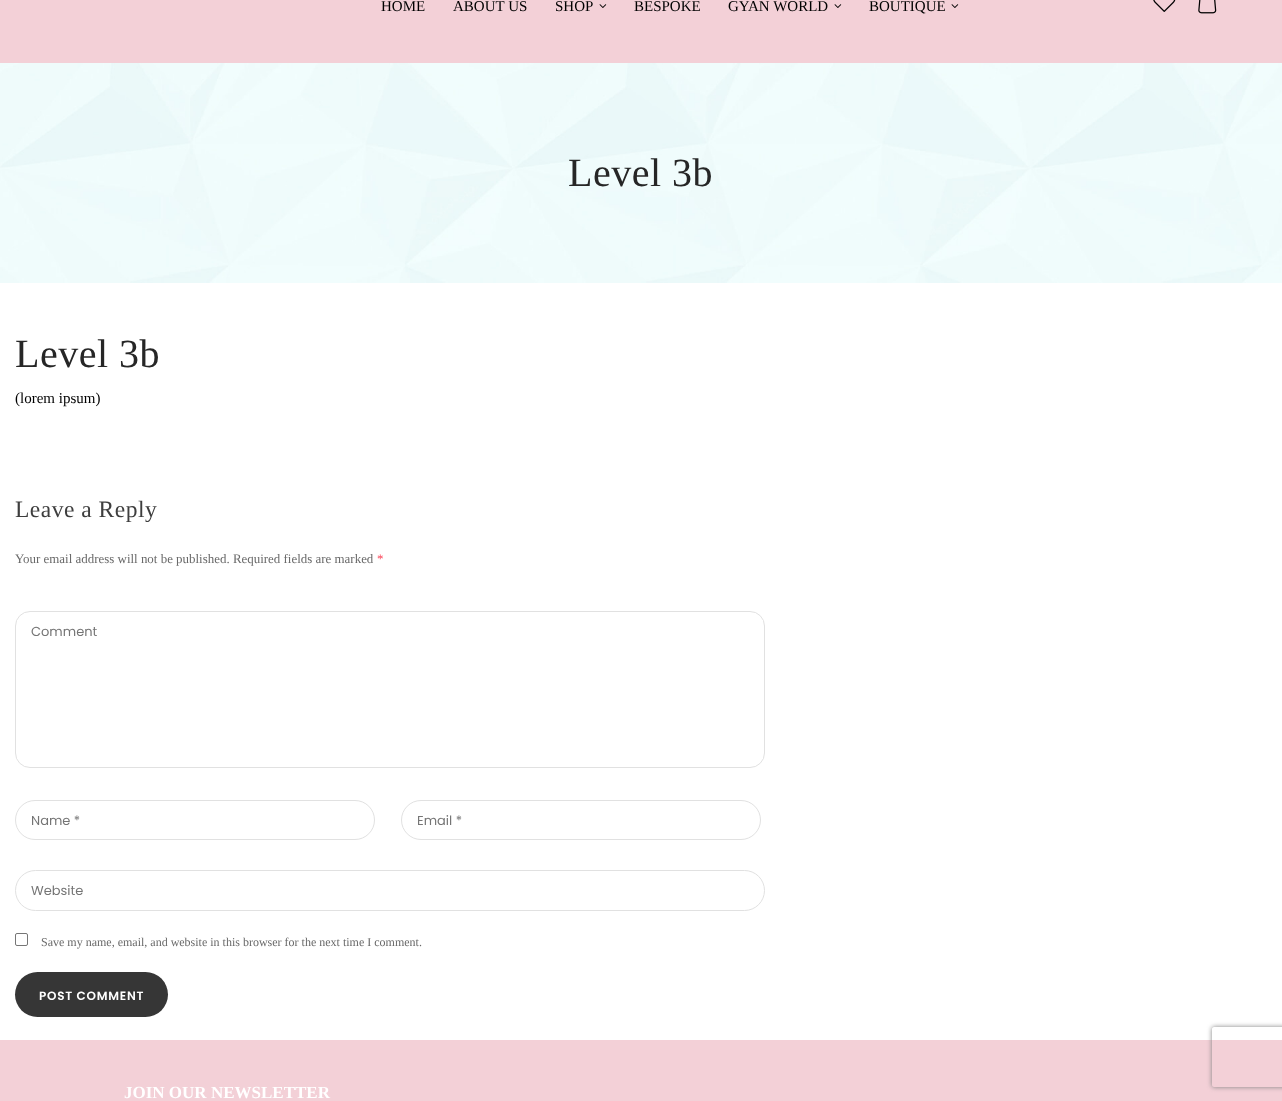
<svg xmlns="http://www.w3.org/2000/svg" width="1282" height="1101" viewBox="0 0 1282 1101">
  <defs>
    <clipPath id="clip1"><path d="M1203 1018H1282V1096H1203ZM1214 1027H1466C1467 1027 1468 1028 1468 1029V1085C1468 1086 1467 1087 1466 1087H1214C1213 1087 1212 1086 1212 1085V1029C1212 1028 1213 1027 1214 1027Z" clip-rule="evenodd"/></clipPath>
  </defs>
  <rect width="100%" height="100%" fill="rgb(255,255,255)"/>
  <rect x="0" y="0" width="1282" height="63" fill="rgb(243,208,215)"/>
  <g font-family="Liberation Serif" font-size="15" fill="rgb(0,0,0)">
    <text x="381" y="11">HOME</text>
    <text x="453" y="11">ABOUT US</text>
    <text x="555" y="11">SHOP</text>
  </g>
  <image x="599" y="4" width="8" height="4" href="pic1.png"/>
  <g font-family="Liberation Serif" font-size="15" fill="rgb(0,0,0)">
    <text x="634" y="11">BESPOKE</text>
    <text x="728" y="11">GYAN WORLD</text>
  </g>
  <image x="834" y="4" width="8" height="4" href="pic1.png"/>
  <text x="869" y="11" font-family="Liberation Serif" font-size="15" fill="rgb(0,0,0)">BOUTIQUE</text>
  <image x="951" y="4" width="8" height="4" href="pic1.png"/>
  <image x="1153" y="0" width="23" height="12" href="pic2.png"/>
  <image x="1198" y="0" width="19" height="14" href="pic3.png"/>
  <image x="0" y="63" width="1282" height="220" href="pic4.png"/>
  <g font-family="Liberation Serif" font-size="40" letter-spacing="0.5" fill="rgb(38,38,38)">
    <text x="568" y="186">Level 3b</text>
    <text x="15" y="367">Level 3b</text>
  </g>
  <text x="15" y="403" font-family="Liberation Serif" font-size="15" fill="rgb(0,0,0)">(lorem ipsum)</text>
  <text x="15" y="517" font-family="Liberation Serif" font-size="23.5" letter-spacing="0.5" fill="rgb(62,62,62)">Leave a Reply</text>
  <text x="15" y="563" font-family="Liberation Serif" font-size="12.95" fill="rgb(105,105,105)">Your email address will not be published. Required fields are marked</text>
  <text x="377" y="563" font-family="Liberation Serif" font-size="12.95" fill="rgb(250,70,89)">*</text>
  <rect x="15.5" y="611.5" width="749" height="156" rx="14.5" fill="none" stroke="rgb(225,225,225)"/>
  <text x="31" y="636" font-family="Poppins" font-size="13" fill="rgb(117,117,117)">Comment</text>
  <rect x="15.5" y="800.5" width="359" height="39" rx="19.5" fill="none" stroke="rgb(225,225,225)"/>
  <text x="31" y="825" font-family="Poppins" font-size="13" fill="rgb(117,117,117)">Name *</text>
  <rect x="401.5" y="800.5" width="359" height="39" rx="19.5" fill="none" stroke="rgb(225,225,225)"/>
  <text x="417" y="825" font-family="Poppins" font-size="13" fill="rgb(117,117,117)">Email *</text>
  <rect x="15.5" y="870.5" width="749" height="40" rx="20" fill="none" stroke="rgb(225,225,225)"/>
  <text x="31" y="895" font-family="Poppins" font-size="13" fill="rgb(117,117,117)">Website</text>
  <rect x="15.5" y="933.5" width="12" height="12" rx="1.5" fill="none" stroke="rgb(118,118,118)"/>
  <text x="41" y="946" font-family="Liberation Serif" font-size="12" fill="rgb(105,105,105)">Save my name, email, and website in this browser for the next time I comment.</text>
  <rect x="15" y="972" width="153" height="45" rx="22.5" fill="rgb(54,54,54)"/>
  <text x="39" y="1000" font-family="Poppins" font-size="12" font-weight="600" letter-spacing="0.75" fill="rgb(255,255,255)">POST COMMENT</text>
  <rect x="0" y="1040" width="1282" height="61" fill="rgb(243,208,215)"/>
  <text x="124" y="1098" font-family="Liberation Serif" font-size="17" font-weight="bold" fill="rgb(255,255,255)">JOIN OUR NEWSLETTER</text>
  <g clip-path="url(#clip1)">
    <rect x="1212" y="1027" width="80" height="60" rx="2" fill="rgb(128,128,128)" filter="blur(2.5px)"/>
  </g>
</svg>
